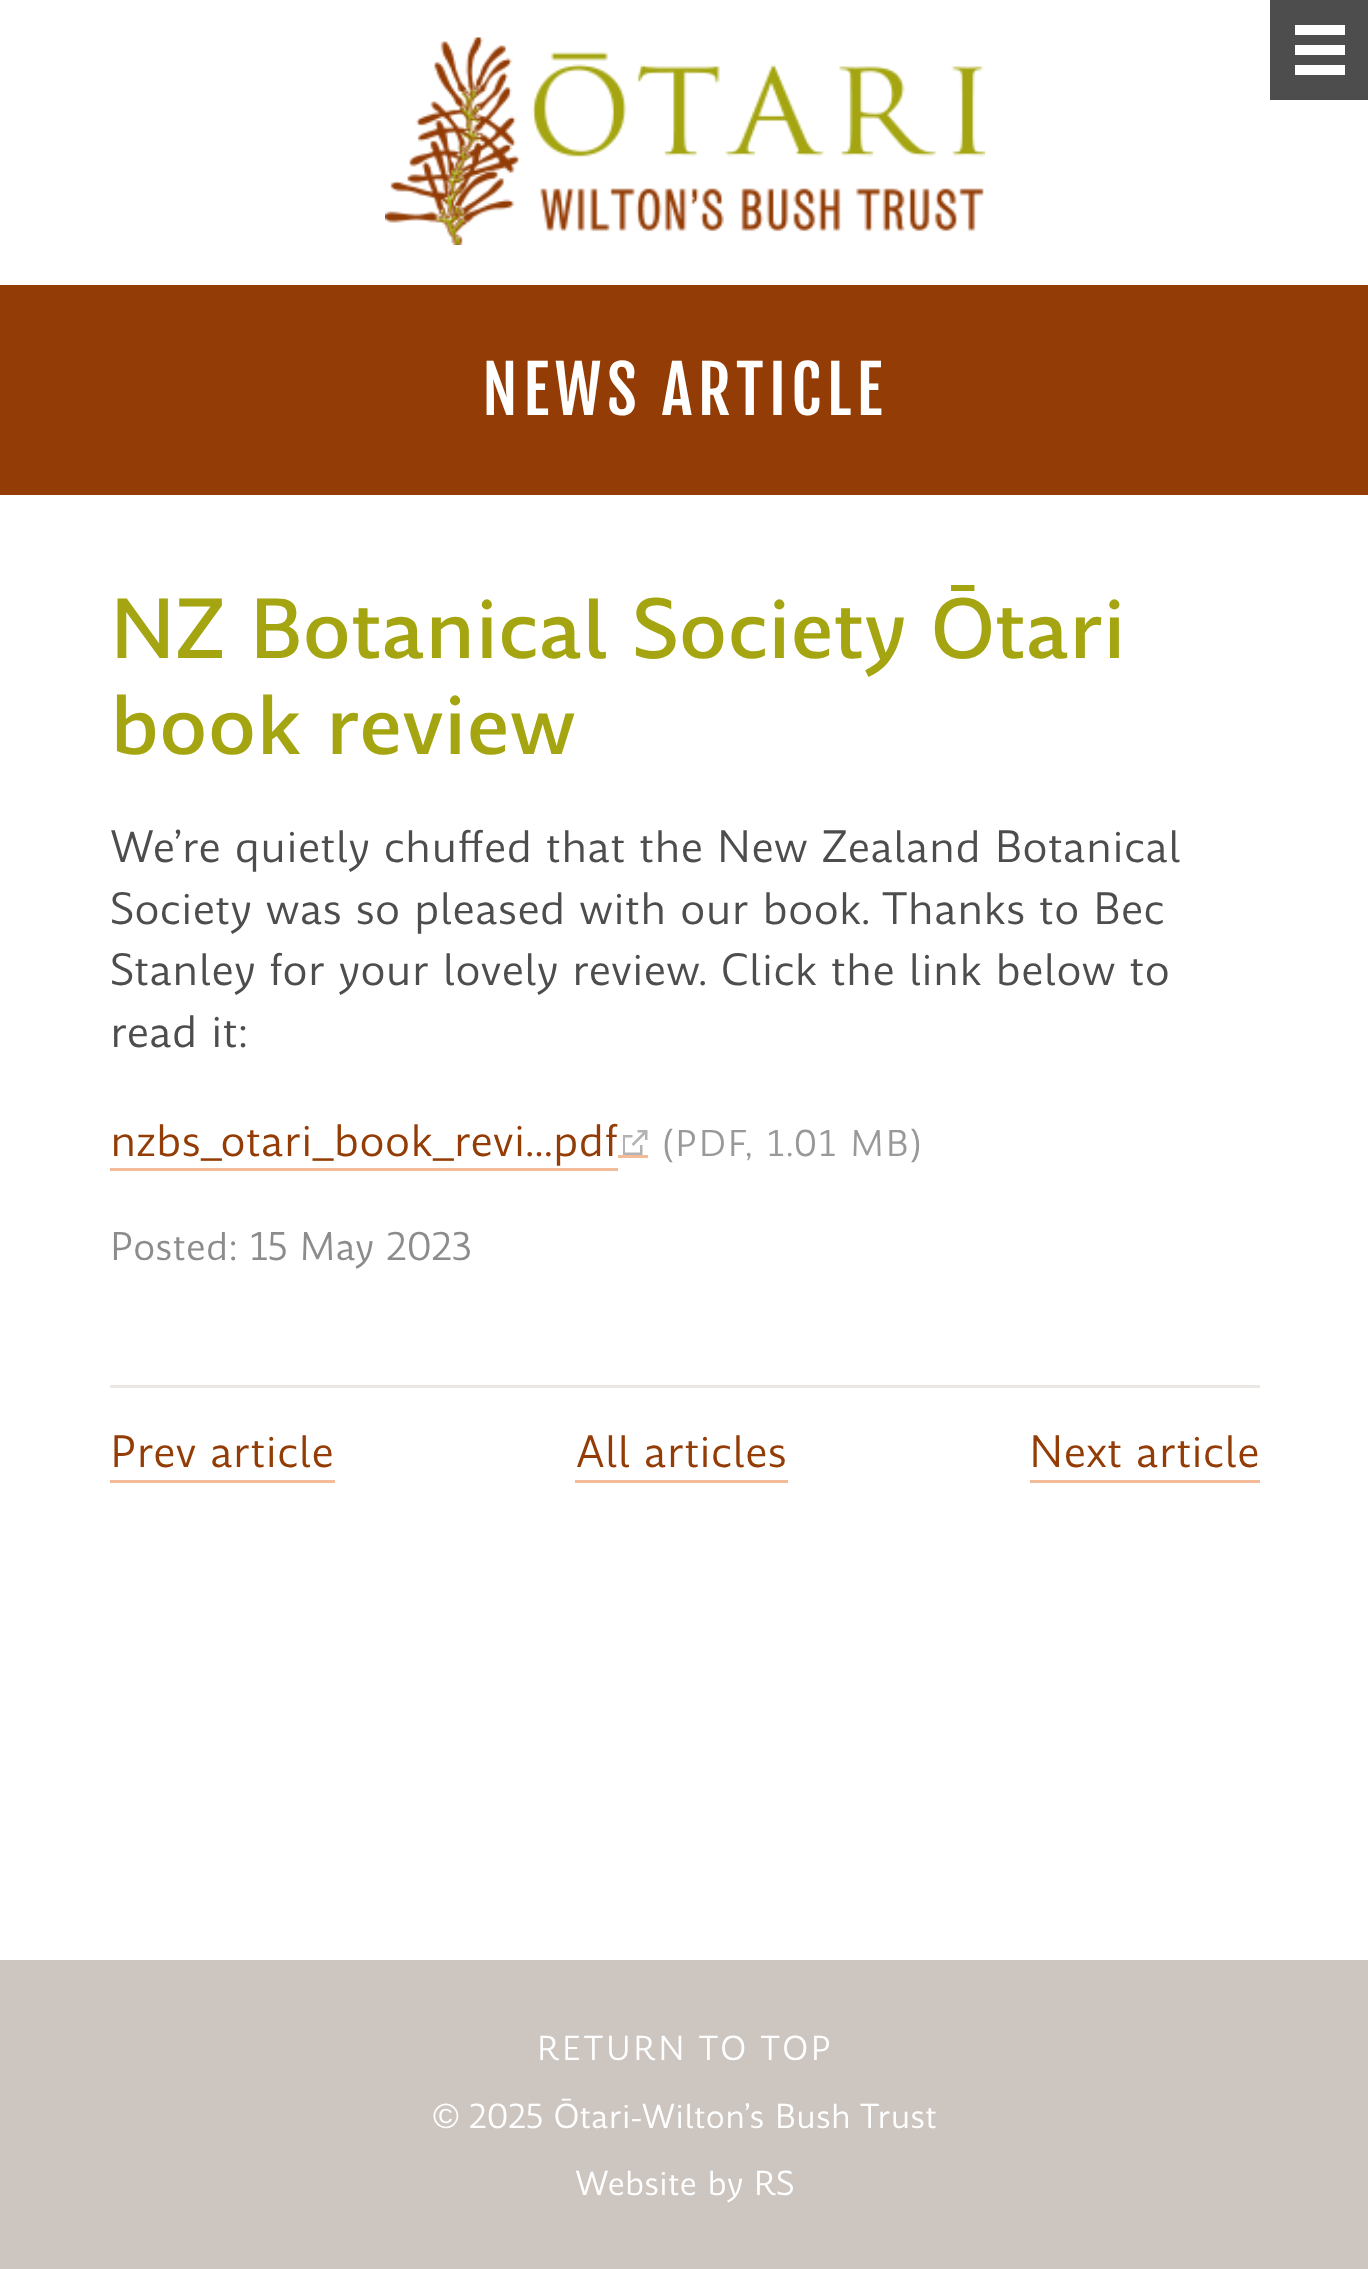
<svg xmlns="http://www.w3.org/2000/svg" width="1368" height="2269" viewBox="0 0 1368 2269">
  <rect width="100%" height="100%" fill="rgb(255,255,255)"/>
  <rect x="1270" y="0" width="98" height="100" fill="rgb(77,77,77)"/>
  <rect x="1295" y="45" width="50" height="10" fill="rgb(255,255,255)"/>
  <rect x="1295" y="25" width="50" height="10" fill="rgb(255,255,255)"/>
  <rect x="1295" y="65" width="50" height="10" fill="rgb(255,255,255)"/>
  <image x="385" y="37" width="600" height="208" href="pic1.png"/>
  <rect x="0" y="285" width="1368" height="210" fill="rgb(147,60,6)"/>
  <text x="482" y="415" font-family="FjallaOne" font-size="65" letter-spacing="5.25" fill="rgb(255,255,255)">NEWS ARTICLE</text>
  <g font-family="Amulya" font-size="80" font-weight="500" fill="rgb(164,165,16)">
    <text>
      <tspan x="110" y="658">NZ Botanical Society Ōtari</tspan>
      <tspan x="110" y="754">book review</tspan>
    </text>
  </g>
  <g font-family="Amulya" font-size="42.5" fill="rgb(77,77,77)">
    <text>
      <tspan x="110" y="862">We’re quietly chuffed that the New Zealand Botanical</tspan>
      <tspan x="110" y="924">Society was so pleased with our book. Thanks to Bec</tspan>
      <tspan x="110" y="985">Stanley for your lovely review. Click the link below to</tspan>
      <tspan x="110" y="1047">read it:</tspan>
    </text>
  </g>
  <rect x="110" y="1168" width="508" height="3" fill="rgb(244,187,152)"/>
  <rect x="618" y="1155" width="30" height="3" fill="rgb(244,187,152)"/>
  <text x="110" y="1156" font-family="Amulya" font-size="42.5" fill="rgb(147,60,6)">nzbs_otari_book_revi…pdf</text>
  <image x="623" y="1130" width="25" height="25" href="pic2.png"/>
  <text x="662" y="1156" font-family="Amulya" font-size="35" letter-spacing="1.75" fill="rgb(153,153,153)">(PDF, 1.01 MB)</text>
  <text x="110" y="1260" font-family="Amulya" font-size="37.5" fill="rgb(140,140,140)">Posted: 15 May 2023</text>
  <rect x="110" y="1385" width="1150" height="3" fill="rgb(234,231,228)"/>
  <text x="110" y="1467" font-family="Amulya" font-size="42.5" fill="rgb(147,60,6)">Prev article</text>
  <rect x="110" y="1480" width="225" height="3" fill="rgb(244,187,152)"/>
  <text x="576" y="1467" font-family="Amulya" font-size="42.5" fill="rgb(147,60,6)">All articles</text>
  <rect x="575" y="1480" width="213" height="3" fill="rgb(244,187,152)"/>
  <text x="1029" y="1467" font-family="Amulya" font-size="42.5" fill="rgb(147,60,6)">Next article</text>
  <rect x="1030" y="1480" width="230" height="3" fill="rgb(244,187,152)"/>
  <rect x="0" y="1960" width="1368" height="309" fill="rgb(204,197,192)"/>
  <text x="537" y="2060" font-family="Amulya" font-size="32.5" letter-spacing="2.6" fill="rgb(255,255,255)">RETURN TO TOP</text>
  <text x="433" y="2128" font-family="Liberation Sans" font-size="35" fill="rgb(255,255,255)">©</text>
  <g font-family="Amulya" font-size="32.5" fill="rgb(255,255,255)">
    <text x="469" y="2128">2025 Ōtari-Wilton’s Bush Trust</text>
    <text x="575" y="2195">Website by RS</text>
  </g>
</svg>
